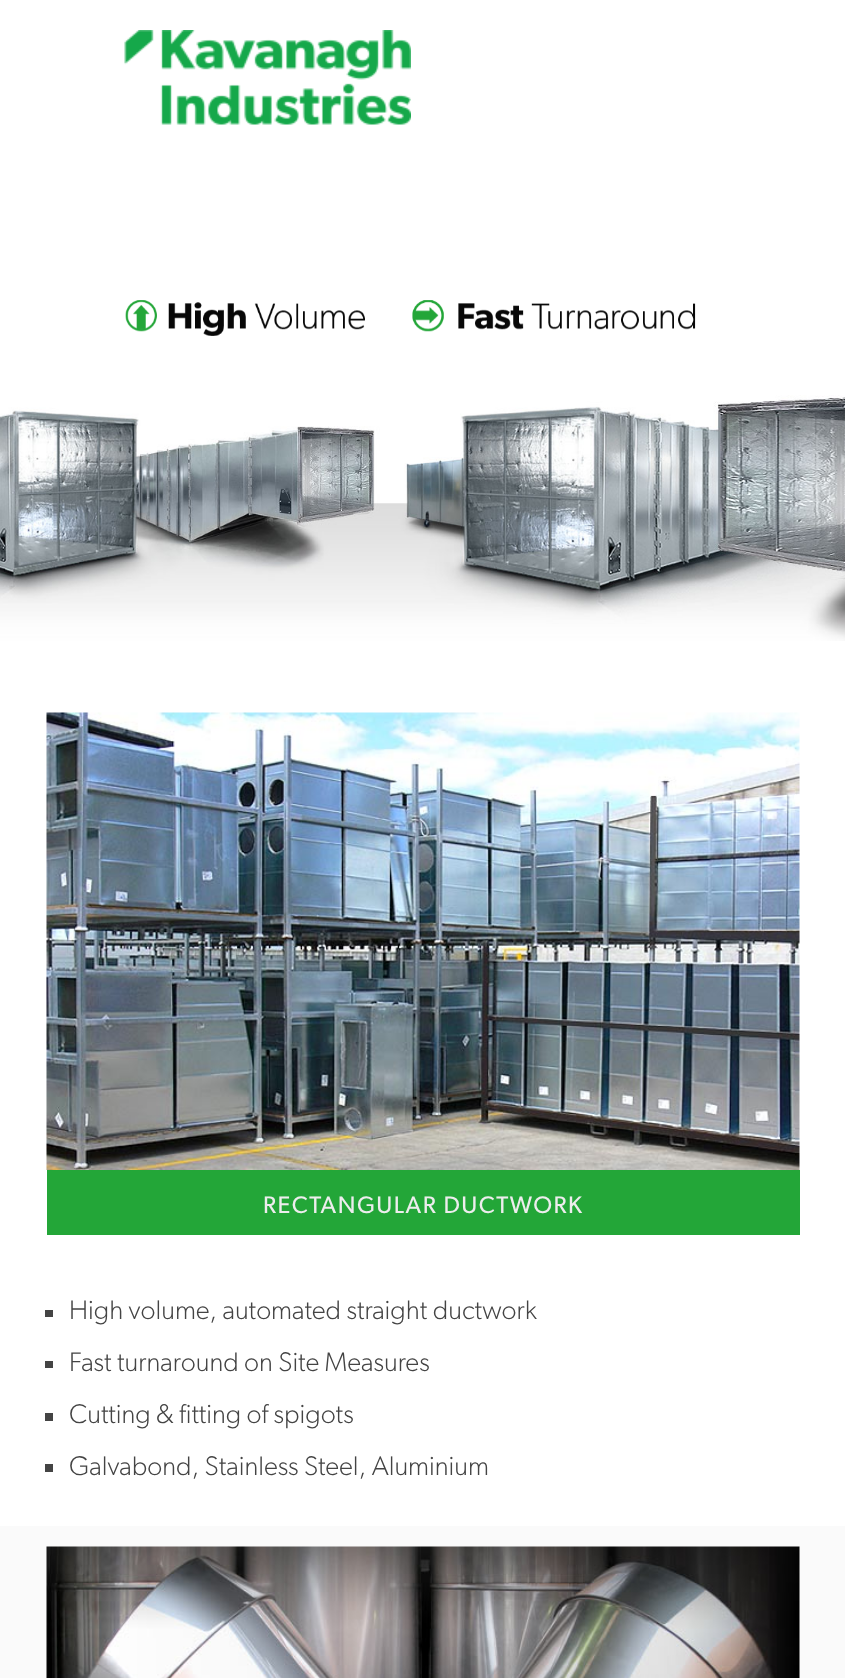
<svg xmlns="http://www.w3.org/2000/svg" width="845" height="1678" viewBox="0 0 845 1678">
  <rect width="100%" height="100%" fill="rgb(255,255,255)"/>
  <image x="124" y="30" width="287" height="95" href="pic1.png"/>
  <image x="125" y="300" width="571" height="36" href="pic2.png"/>
  <image x="0" y="395" width="845" height="246" href="pic3.png"/>
  <rect x="0" y="1526" width="845" height="152" fill="rgb(250,250,250)"/>
  <image x="46" y="712" width="754" height="458" href="pic4.png"/>
  <rect x="47" y="1170" width="753" height="65" fill="rgb(35,166,56)"/>
  <text x="263" y="1213" font-family="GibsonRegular" font-size="24" letter-spacing="1.5" fill="rgb(237,237,237)">RECTANGULAR DUCTWORK</text>
  <rect x="45" y="1310" width="8" height="7" fill="rgb(68,68,68)"/>
  <text x="69" y="1319" font-family="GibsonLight" font-size="27" font-weight="300" fill="rgb(68,68,68)">High volume, automated straight ductwork</text>
  <rect x="45" y="1361" width="8" height="7" fill="rgb(68,68,68)"/>
  <text x="69" y="1371" font-family="GibsonLight" font-size="27" font-weight="300" fill="rgb(68,68,68)">Fast turnaround on Site Measures</text>
  <rect x="45" y="1413" width="8" height="8" fill="rgb(68,68,68)"/>
  <text x="69" y="1423" font-family="GibsonLight" font-size="27" font-weight="300" fill="rgb(68,68,68)">Cutting &amp; fitting of spigots</text>
  <rect x="45" y="1464" width="8" height="8" fill="rgb(68,68,68)"/>
  <text x="69" y="1475" font-family="GibsonLight" font-size="27" font-weight="300" fill="rgb(68,68,68)">Galvabond, Stainless Steel, Aluminium</text>
  <image x="46" y="1546" width="754" height="132" href="pic5.png"/>
</svg>
